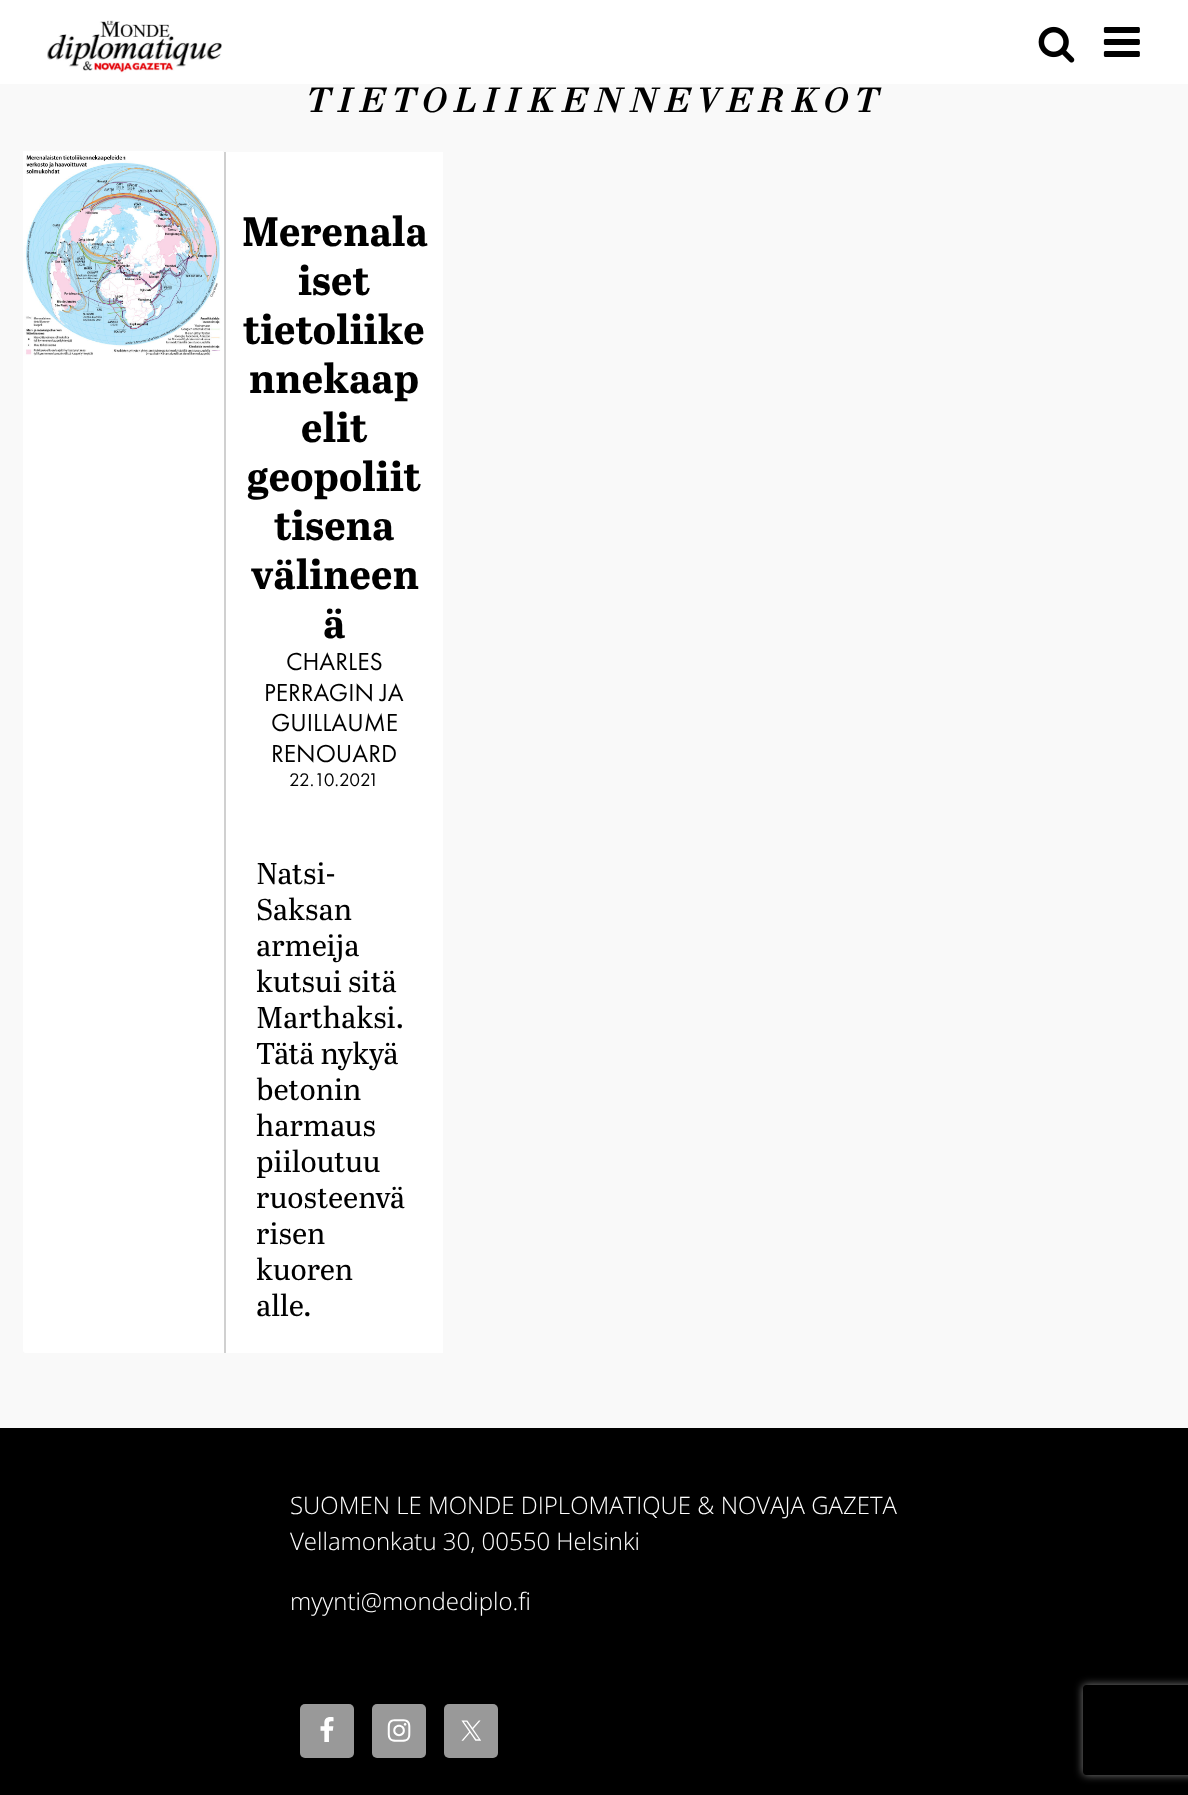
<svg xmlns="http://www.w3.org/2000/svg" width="1188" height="1795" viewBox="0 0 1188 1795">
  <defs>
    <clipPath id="clip1"><path d="M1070 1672H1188V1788H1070ZM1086 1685H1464C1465.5 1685 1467 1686.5 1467 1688V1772C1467 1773.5 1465.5 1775 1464 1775H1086C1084.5 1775 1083 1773.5 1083 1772V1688C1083 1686.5 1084.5 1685 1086 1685Z" clip-rule="evenodd"/></clipPath>
  </defs>
  <rect width="100%" height="100%" fill="rgb(249,249,249)"/>
  <rect x="0" y="0" width="1188" height="84" fill="rgb(255,255,255)"/>
  <image x="47" y="20" width="175" height="53" href="pic1.png"/>
  <image x="1038" y="26" width="37" height="37" href="pic2.png"/>
  <image x="1103" y="27" width="37" height="30" href="pic3.png"/>
  <text x="304" y="112" font-family="'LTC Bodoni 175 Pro'" font-size="33.6" font-weight="bold" font-style="italic" letter-spacing="7.5" fill="rgb(0,0,0)">TIETOLIIKENNEVERKOT</text>
  <rect x="23" y="152" width="420" height="1201" rx="3" fill="rgb(255,255,255)"/>
  <image x="23" y="151" width="200" height="205" href="pic4.png"/>
  <rect x="441" y="152" width="2" height="1201" fill="rgb(255,255,255)"/>
  <rect x="224" y="152" width="2" height="1201" fill="rgb(208,208,208)"/>
  <g font-family="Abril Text" font-size="41" font-weight="bold" fill="rgb(0,0,0)">
    <text x="242" y="246">Merenala</text>
    <text x="298" y="295">iset</text>
    <text x="243" y="344">tietoliike</text>
    <text x="249" y="393">nnekaap</text>
    <text x="301" y="442">elit</text>
    <text x="247" y="491">geopoliit</text>
    <text x="274" y="540">tisena</text>
    <text x="251" y="589">välineen</text>
    <text x="323" y="638">ä</text>
  </g>
  <g font-family="Futura PT" font-size="25.5" fill="rgb(0,0,0)">
    <text x="286" y="670">CHARLES</text>
    <text x="264" y="701">PERRAGIN JA</text>
    <text>
      <tspan x="271" y="731">GUILLAUME</tspan>
      <tspan x="271" y="762">RENOUARD</tspan>
    </text>
  </g>
  <text x="289" y="786" font-family="Futura PT" font-size="19" fill="rgb(0,0,0)">22.10.2021</text>
  <g font-family="Abril Text" font-size="30" fill="rgb(0,0,0)">
    <text>
      <tspan x="256" y="884">Natsi-</tspan>
      <tspan x="256" y="920">Saksan</tspan>
      <tspan x="256" y="956">armeija</tspan>
      <tspan x="256" y="992">kutsui sitä</tspan>
      <tspan x="256" y="1028">Marthaksi.</tspan>
      <tspan x="256" y="1064">Tätä nykyä</tspan>
      <tspan x="256" y="1100">betonin</tspan>
      <tspan x="256" y="1136">harmaus</tspan>
      <tspan x="256" y="1172">piiloutuu</tspan>
      <tspan x="256" y="1208">ruosteenvä</tspan>
      <tspan x="256" y="1244">risen</tspan>
      <tspan x="256" y="1280">kuoren</tspan>
      <tspan x="256" y="1316">alle.</tspan>
    </text>
  </g>
  <rect x="0" y="1428" width="1188" height="367" fill="rgb(0,0,0)"/>
  <g font-family="Open Sans" font-size="24" font-weight="300" fill="rgb(255,255,255)">
    <text>
      <tspan x="290" y="1514">SUOMEN LE MONDE DIPLOMATIQUE &amp; NOVAJA GAZETA</tspan>
      <tspan x="290" y="1550">Vellamonkatu 30, 00550 Helsinki</tspan>
    </text>
    <text x="290" y="1610">myynti@mondediplo.fi</text>
  </g>
  <rect x="300" y="1704" width="54" height="54" rx="5" fill="rgb(153,153,153)"/>
  <image x="320" y="1717" width="14" height="25" href="pic5.png"/>
  <rect x="372" y="1704" width="54" height="54" rx="5" fill="rgb(153,153,153)"/>
  <image x="387" y="1719" width="24" height="23" href="pic6.png"/>
  <rect x="444" y="1704" width="54" height="54" rx="5" fill="rgb(153,153,153)"/>
  <image x="461" y="1720" width="20" height="21" href="pic7.png"/>
  <g clip-path="url(#clip1)">
    <rect x="1083" y="1685" width="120" height="90" rx="3" fill="rgb(128,128,128)" filter="blur(4px)"/>
  </g>
</svg>
